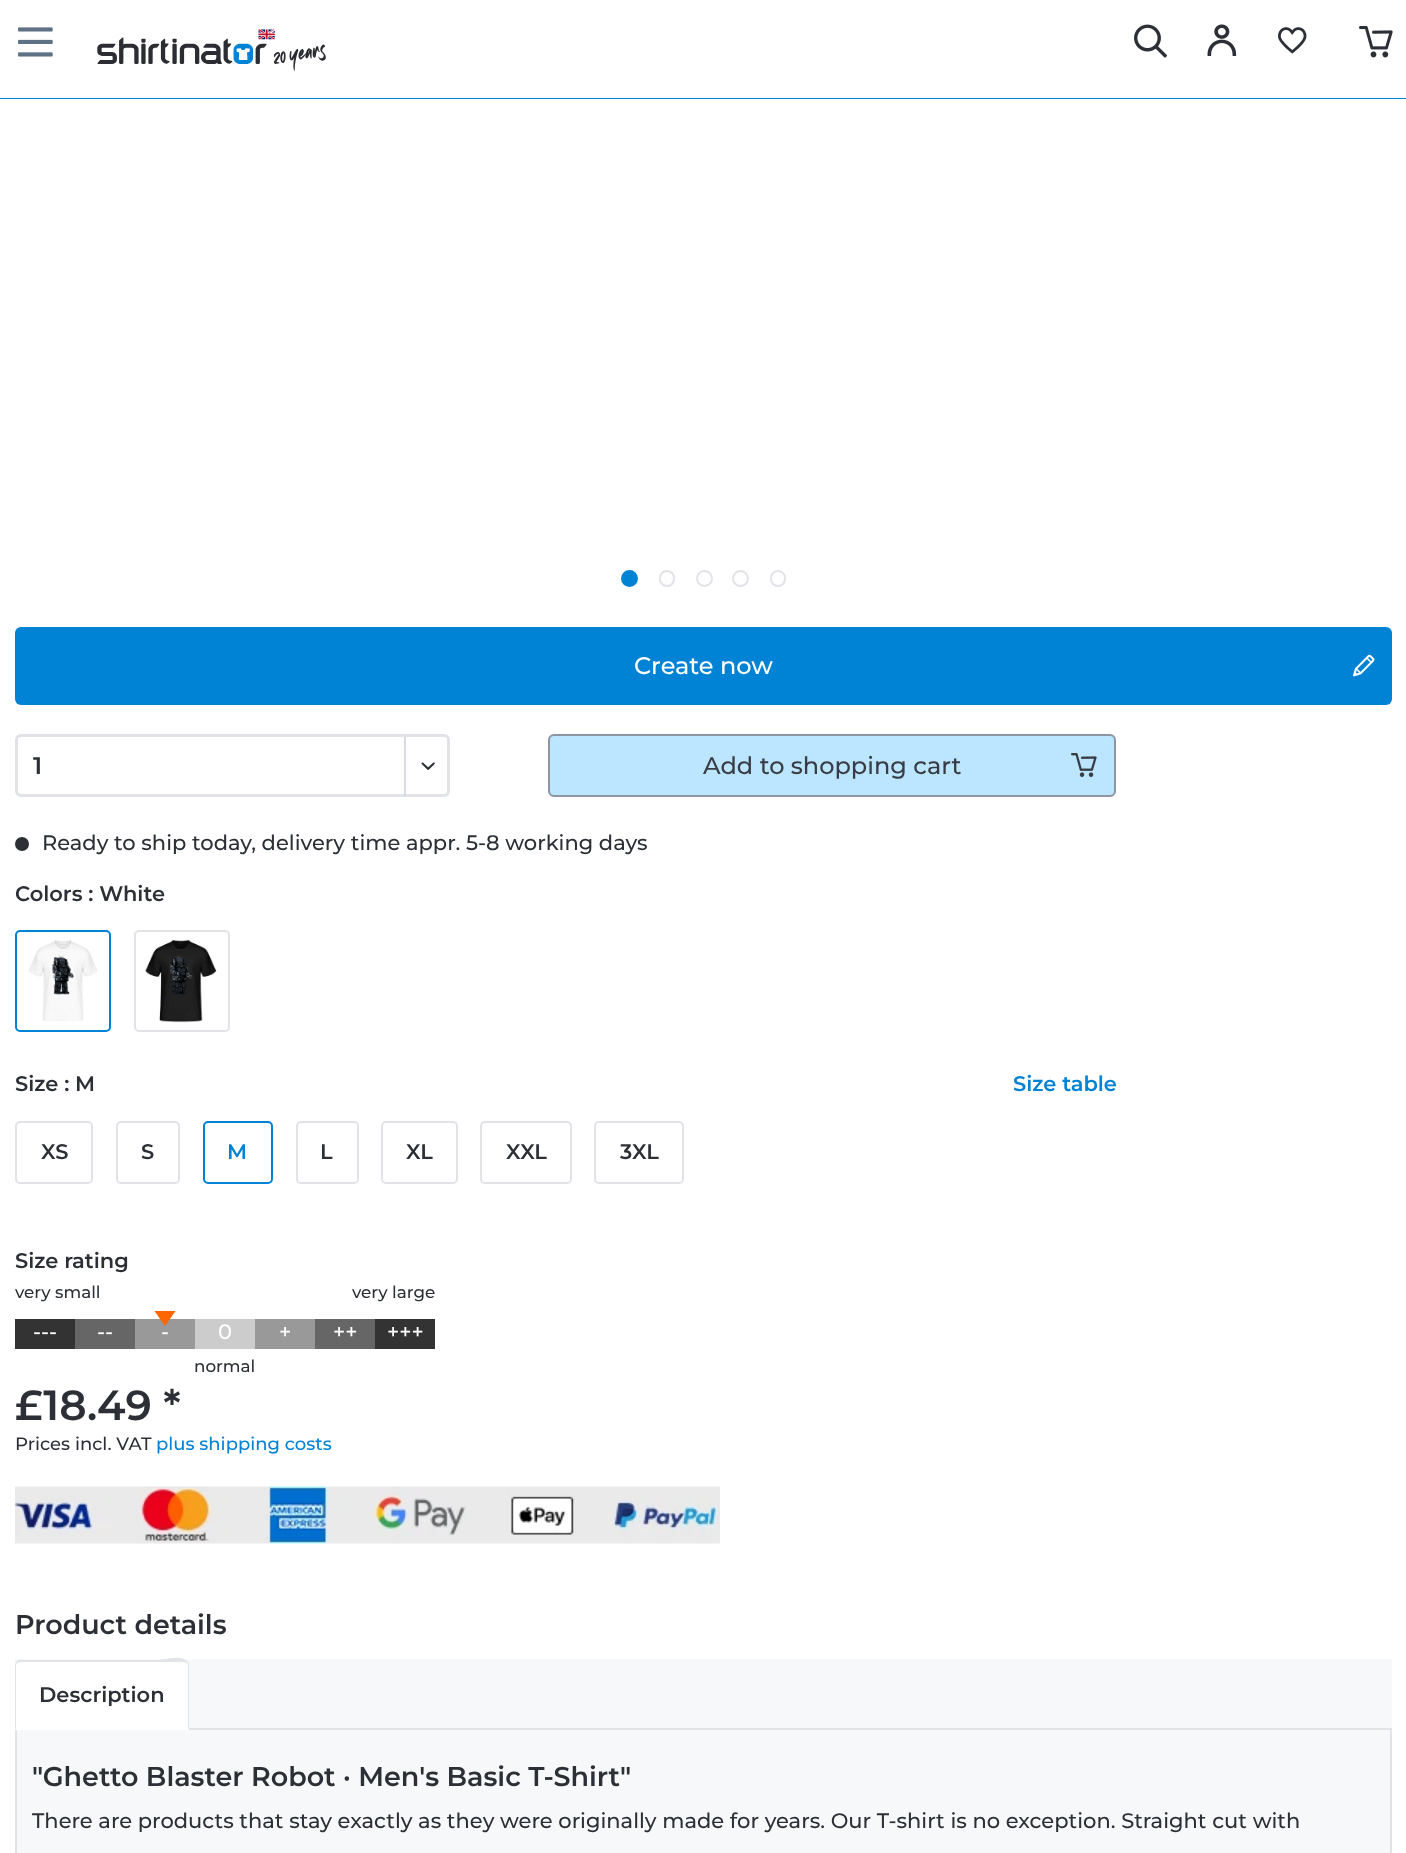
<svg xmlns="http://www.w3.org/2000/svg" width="1406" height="1853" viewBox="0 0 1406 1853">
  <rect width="100%" height="100%" fill="rgb(255,255,255)"/>
  <rect x="0" y="98" width="1406" height="1" fill="rgb(0,130,213)"/>
  <image x="18" y="27" width="35" height="30" href="pic1.png"/>
  <image x="97" y="29" width="229" height="42" href="pic2.png"/>
  <image x="1134" y="24" width="33" height="34" href="pic3.png"/>
  <image x="1207" y="24" width="30" height="32" href="pic4.png"/>
  <image x="1278" y="27" width="29" height="27" href="pic5.png"/>
  <image x="1359" y="26" width="34" height="32" href="pic6.png"/>
  <circle cx="629.5" cy="578.5" r="7.5" fill="rgb(0,130,213)" stroke="rgb(0,130,213)" stroke-width="2"/>
  <rect x="660" y="571" width="14" height="15" rx="7" fill="none" stroke="rgb(225,227,231)" stroke-width="2"/>
  <circle cx="704.5" cy="578.5" r="7.5" fill="none" stroke="rgb(225,227,231)" stroke-width="2"/>
  <circle cx="740.5" cy="578.5" r="7.5" fill="none" stroke="rgb(225,227,231)" stroke-width="2"/>
  <rect x="771" y="571" width="14" height="15" rx="7" fill="none" stroke="rgb(225,227,231)" stroke-width="2"/>
  <rect x="15" y="627" width="1377" height="78" rx="6" fill="rgb(0,130,213)"/>
  <text x="634" y="674" font-family="Montserrat" font-size="24" font-weight="500" fill="rgb(255,255,255)">Create now</text>
  <image x="1353" y="654" width="22" height="23" href="pic7.png"/>
  <rect x="16.5" y="735.5" width="432" height="60" rx="4.5" fill="none" stroke="rgb(225,227,231)" stroke-width="3"/>
  <text x="33" y="774" font-family="Montserrat" font-size="24" font-weight="600" fill="rgb(44,48,54)">1</text>
  <rect x="404" y="737" width="2" height="60" fill="rgb(218,218,229)"/>
  <image x="421" y="762" width="14" height="8" href="pic8.png"/>
  <rect x="549" y="735" width="566" height="61" rx="5" fill="rgb(188,229,255)" stroke="rgb(141,148,162)" stroke-width="2"/>
  <text x="703" y="774" font-family="Montserrat" font-size="24" font-weight="500" fill="rgb(56,60,68)">Add to shopping cart</text>
  <image x="1071" y="753" width="26" height="24" href="pic9.png"/>
  <circle cx="22" cy="844" r="7" fill="rgb(44,48,54)"/>
  <text x="42" y="850" font-family="Montserrat" font-size="21" font-weight="500" fill="rgb(44,48,54)">Ready to ship today, delivery time appr. 5-8 working days</text>
  <text x="15" y="901" font-family="Montserrat" font-size="21" font-weight="600" fill="rgb(44,48,54)">Colors : White</text>
  <rect x="16" y="931" width="94" height="100" rx="4" fill="none" stroke="rgb(0,130,213)" stroke-width="2"/>
  <image x="28" y="940" width="70" height="82" href="pic10.png"/>
  <rect x="135" y="931" width="94" height="100" rx="4" fill="none" stroke="rgb(225,227,231)" stroke-width="2"/>
  <image x="145" y="939" width="72" height="84" href="pic11.png"/>
  <text x="15" y="1091" font-family="Montserrat" font-size="21" font-weight="600" fill="rgb(44,48,54)">Size : M</text>
  <text x="1013" y="1091" font-family="Montserrat" font-size="21" font-weight="600" fill="rgb(0,130,213)">Size table</text>
  <rect x="16" y="1122" width="76" height="61" rx="4" fill="none" stroke="rgb(225,227,231)" stroke-width="2"/>
  <text x="41" y="1159" font-family="Montserrat" font-size="21" font-weight="600" fill="rgb(44,48,54)">XS</text>
  <rect x="117" y="1122" width="62" height="61" rx="4" fill="none" stroke="rgb(225,227,231)" stroke-width="2"/>
  <text x="141" y="1159" font-family="Montserrat" font-size="21" font-weight="600" fill="rgb(44,48,54)">S</text>
  <rect x="204" y="1122" width="68" height="61" rx="4" fill="none" stroke="rgb(0,130,213)" stroke-width="2"/>
  <text x="227" y="1159" font-family="Montserrat" font-size="21" font-weight="600" fill="rgb(0,130,213)">M</text>
  <rect x="297" y="1122" width="61" height="61" rx="4" fill="none" stroke="rgb(225,227,231)" stroke-width="2"/>
  <text x="320" y="1159" font-family="Montserrat" font-size="21" font-weight="600" fill="rgb(44,48,54)">L</text>
  <rect x="382" y="1122" width="75" height="61" rx="4" fill="none" stroke="rgb(225,227,231)" stroke-width="2"/>
  <text x="406" y="1159" font-family="Montserrat" font-size="21" font-weight="600" fill="rgb(44,48,54)">XL</text>
  <rect x="481" y="1122" width="90" height="61" rx="4" fill="none" stroke="rgb(225,227,231)" stroke-width="2"/>
  <text x="506" y="1159" font-family="Montserrat" font-size="21" font-weight="600" fill="rgb(44,48,54)">XXL</text>
  <rect x="595" y="1122" width="88" height="61" rx="4" fill="none" stroke="rgb(225,227,231)" stroke-width="2"/>
  <g font-family="Montserrat" font-size="21" font-weight="600" fill="rgb(44,48,54)">
    <text x="620" y="1159">3XL</text>
    <text x="15" y="1268">Size rating</text>
  </g>
  <g font-family="Montserrat" font-size="16.75" font-weight="500" fill="rgb(44,48,54)">
    <text x="15" y="1298">very small</text>
    <text x="352" y="1298">very large</text>
  </g>
  <rect x="135" y="1319" width="60" height="30" fill="rgb(153,153,153)"/>
  <path d="M154.5 1311H175.5L165 1326Z" fill="rgb(255,102,0)"/>
  <rect x="15" y="1319" width="60" height="30" fill="rgb(51,51,51)"/>
  <text x="33" y="1339" font-family="Montserrat" font-size="21" font-weight="500" fill="rgb(255,255,255)">---</text>
  <rect x="75" y="1319" width="60" height="30" fill="rgb(102,102,102)"/>
  <g font-family="Montserrat" font-size="21" font-weight="500" fill="rgb(255,255,255)">
    <text x="97" y="1339">--</text>
    <text x="161" y="1339">-</text>
  </g>
  <rect x="195" y="1319" width="60" height="30" fill="rgb(204,204,204)"/>
  <text x="218" y="1339" font-family="Montserrat" font-size="21" font-weight="500" fill="rgb(255,255,255)">0</text>
  <rect x="255" y="1319" width="60" height="30" fill="rgb(153,153,153)"/>
  <text x="279" y="1339" font-family="Montserrat" font-size="21" font-weight="500" fill="rgb(255,255,255)">+</text>
  <rect x="315" y="1319" width="60" height="30" fill="rgb(102,102,102)"/>
  <text x="333" y="1339" font-family="Montserrat" font-size="21" font-weight="500" fill="rgb(255,255,255)">++</text>
  <rect x="375" y="1319" width="60" height="30" fill="rgb(51,51,51)"/>
  <text x="387" y="1339" font-family="Montserrat" font-size="21" font-weight="500" fill="rgb(255,255,255)">+++</text>
  <text x="194" y="1372" font-family="Montserrat" font-size="16.75" font-weight="500" fill="rgb(44,48,54)">normal</text>
  <text x="15" y="1420" font-family="Montserrat" font-size="42" font-weight="600" fill="rgb(44,48,54)">£18.49 *</text>
  <text x="15" y="1450" font-family="Montserrat" font-size="18" font-weight="500" fill="rgb(44,48,54)">Prices incl. VAT</text>
  <text x="156" y="1450" font-family="Montserrat" font-size="18" font-weight="500" fill="rgb(0,130,213)">plus shipping costs</text>
  <image x="15" y="1486" width="705" height="58" href="pic12.png"/>
  <text x="15" y="1634" font-family="Montserrat" font-size="27" font-weight="600" fill="rgb(44,48,54)">Product details</text>
  <rect x="15" y="1659" width="1377" height="194" fill="rgb(247,248,249)"/>
  <rect x="16" y="1729" width="1375" height="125" fill="none" stroke="rgb(225,227,231)" stroke-width="2"/>
  <path d="M20 1661H184C187 1661 189 1663 189 1666V1730H15V1666C15 1663 17 1661 20 1661Z" fill="rgb(255,255,255)"/>
  <path d="M20 1662L17 1663L16 1662L18 1660H158C168 1660 181 1654 188 1662L187 1663L184 1662Z" fill="rgb(225,227,231)"/>
  <path d="M189 1730V1665C189 1664 189 1663 188 1662L187 1663L188 1665V1728Z" fill="rgb(225,227,231)"/>
  <path d="M189 1730H15L16 1728H188Z" fill="rgb(255,255,255)"/>
  <path d="M15 1730L16 1728V1665L17 1663L16 1662L15 1665Z" fill="rgb(225,227,231)"/>
  <text x="39" y="1702" font-family="Montserrat" font-size="21" font-weight="600" fill="rgb(44,48,54)">Description</text>
  <text x="32" y="1786" font-family="Montserrat" font-size="27" font-weight="600" fill="rgb(44,48,54)">"Ghetto Blaster Robot · Men's Basic T-Shirt"</text>
  <text x="32" y="1828" font-family="Montserrat" font-size="21" font-weight="500" fill="rgb(44,48,54)">There are products that stay exactly as they were originally made for years. Our T-shirt is no exception. Straight cut with</text>
</svg>
